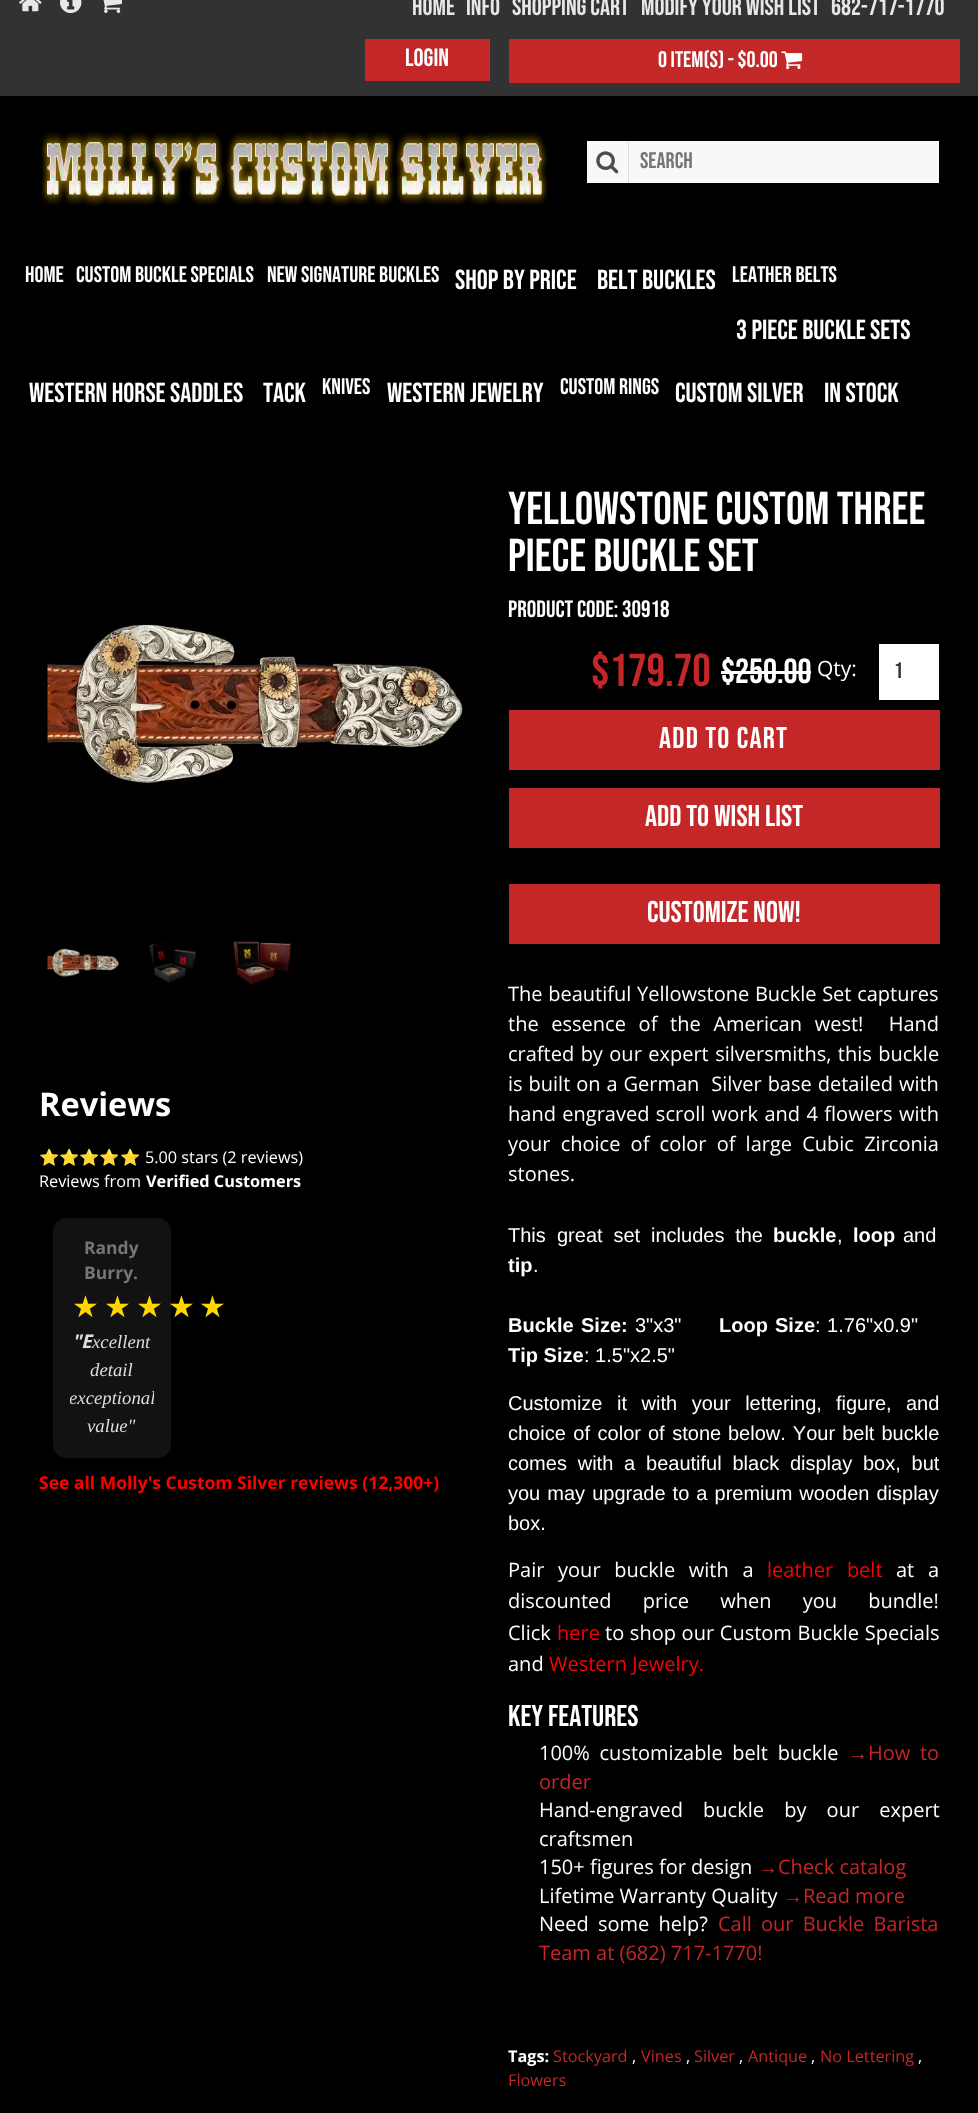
<svg xmlns="http://www.w3.org/2000/svg" width="978" height="2113" viewBox="0 0 978 2113">
  <style>*{font-kerning:none!important;font-variant-ligatures:none!important}</style>
  <defs>
    <clipPath id="clip1"><rect x="70" y="1328" width="84" height="112"/></clipPath>
  </defs>
  <rect width="100%" height="100%" fill="rgb(0,0,0)"/>
  <rect x="0" y="0" width="978" height="96" fill="rgb(50,50,50)"/>
  <image x="19" y="0" width="23" height="12" href="pic1.png"/>
  <text x="412" y="15" font-family="Bebas Neue" font-size="25" fill="rgb(231,231,231)">HOME</text>
  <image x="60" y="0" width="22" height="13" href="pic2.png"/>
  <text x="466" y="15" font-family="Bebas Neue" font-size="25" fill="rgb(231,231,231)">INFO</text>
  <image x="103" y="0" width="19" height="13" href="pic3.png"/>
  <g font-family="Bebas Neue" font-size="25" fill="rgb(231,231,231)">
    <text x="512" y="15">SHOPPING CART</text>
    <text x="641" y="15">MODIFY YOUR WISH LIST</text>
    <text x="831" y="15">682-717-1770</text>
  </g>
  <rect x="365" y="39" width="125" height="42" fill="rgb(196,39,39)"/>
  <text x="405" y="66" font-family="Bebas Neue" font-size="25" fill="rgb(255,255,255)">Login</text>
  <rect x="509" y="39" width="451" height="44" fill="rgb(196,39,39)"/>
  <text x="658" y="67" font-family="Bebas Neue" font-size="22.5" fill="rgb(255,255,255)">0 item(s) - $0.00</text>
  <image x="781" y="51" width="22" height="19" href="pic4.png"/>
  <image x="41" y="131" width="507" height="75" href="pic5.png"/>
  <rect x="587" y="141" width="352" height="42" fill="rgb(248,248,248)"/>
  <rect x="628" y="141" width="1" height="42" fill="rgb(221,221,221)"/>
  <image x="596" y="151" width="23" height="23" href="pic6.png"/>
  <text x="640" y="168" font-family="Bebas Neue" font-size="22.5" fill="rgb(117,117,117)">Search</text>
  <g font-family="Bebas Neue" font-size="22.5" fill="rgb(255,255,255)">
    <text x="25" y="282">Home</text>
    <text x="76" y="282">Custom Buckle Specials</text>
    <text x="267" y="282">New Signature Buckles</text>
  </g>
  <g font-family="Bebas Neue" font-size="27.5" fill="rgb(255,255,255)">
    <text x="455" y="289">Shop By Price</text>
    <text x="597" y="289">Belt Buckles</text>
  </g>
  <text x="732" y="282" font-family="Bebas Neue" font-size="22.5" fill="rgb(255,255,255)">Leather Belts</text>
  <g font-family="Bebas Neue" font-size="27.5" fill="rgb(255,255,255)">
    <text x="736" y="339">3 Piece Buckle Sets</text>
    <text x="29" y="402">Western Horse Saddles</text>
    <text x="263" y="402">Tack</text>
  </g>
  <text x="322" y="394" font-family="Bebas Neue" font-size="22.5" fill="rgb(255,255,255)">Knives</text>
  <text x="387" y="402" font-family="Bebas Neue" font-size="27.5" fill="rgb(255,255,255)">Western Jewelry</text>
  <text x="560" y="394" font-family="Bebas Neue" font-size="22.5" fill="rgb(255,255,255)">Custom Rings</text>
  <g font-family="Bebas Neue" font-size="27.5" fill="rgb(255,255,255)">
    <text x="675" y="402">Custom Silver</text>
    <text x="824" y="402">IN STOCK</text>
  </g>
  <image x="47" y="624" width="417" height="161" href="pic7.png"/>
  <image x="47" y="948" width="72" height="29" href="pic8.png"/>
  <image x="149" y="943" width="47" height="40" href="pic9.png"/>
  <image x="233" y="941" width="59" height="44" href="pic10.png"/>
  <text x="39" y="1116" font-family="Open Sans" font-size="32.5" font-weight="bold" fill="rgb(255,255,255)">Reviews</text>
  <text x="39" y="1163" font-family="Noto Color Emoji" font-size="16.25" fill="rgb(255,255,255)">⭐⭐⭐⭐⭐</text>
  <g font-family="Open Sans" font-size="16.25" fill="rgb(255,255,255)">
    <text x="145" y="1163">5.00 stars (2 reviews)</text>
    <text x="39" y="1187">Reviews from</text>
  </g>
  <text x="146" y="1187" font-family="Open Sans" font-size="16.25" font-weight="bold" fill="rgb(255,255,255)">Verified Customers</text>
  <rect x="53" y="1218" width="118" height="240" rx="13" fill="rgb(18,18,18)"/>
  <g font-family="Open Sans" font-size="17.5" font-weight="bold" fill="rgb(117,117,117)">
    <text>
      <tspan x="84" y="1254">Randy</tspan>
      <tspan x="84" y="1279">Burry.</tspan>
    </text>
  </g>
  <g font-family="DejaVu Sans" font-size="30" fill="rgb(255,215,0)">
    <text x="72" y="1317">★</text>
    <text x="104" y="1317">★</text>
    <text x="136" y="1317">★</text>
    <text x="168" y="1317">★</text>
    <text x="199" y="1317">★</text>
  </g>
  <text x="72" y="1348" font-family="Noto Sans" font-size="18.75" font-weight="bold" font-style="italic" fill="rgb(223,223,223)">"E</text>
  <g font-family="Liberation Serif" font-size="18.75" font-style="italic" fill="rgb(223,223,223)">
    <text x="92" y="1348">xcellent</text>
    <text x="90" y="1376">detail</text>
  </g>
  <g clip-path="url(#clip1)">
    <text x="69" y="1404" font-family="Liberation Serif" font-size="18.75" font-style="italic" fill="rgb(223,223,223)">exceptional</text>
  </g>
  <text x="87" y="1432" font-family="Liberation Serif" font-size="18.75" font-style="italic" fill="rgb(223,223,223)">value"</text>
  <text x="39" y="1489" font-family="Open Sans" font-size="17.5" font-weight="bold" fill="rgb(255,0,0)">See all Molly's Custom Silver reviews (12,300+)</text>
  <g font-family="Bebas Neue" font-size="46.25" fill="rgb(255,255,255)">
    <text>
      <tspan x="508" y="524">Yellowstone Custom Three</tspan>
      <tspan x="508" y="571">Piece Buckle Set</tspan>
    </text>
  </g>
  <text x="508" y="617" font-family="Bebas Neue" font-size="23.75" fill="rgb(255,255,255)">Product Code: 30918</text>
  <text x="591" y="686" font-family="Bebas Neue" font-size="46.25" fill="rgb(196,39,39)">$179.70</text>
  <text x="721" y="683" font-family="Bebas Neue" font-size="35" fill="rgb(255,255,255)">$250.00</text>
  <rect x="721" y="671" width="90" height="3" fill="rgb(255,255,255)"/>
  <text x="817" y="676" font-family="Open Sans" font-size="21" fill="rgb(255,255,255)">Qty:</text>
  <rect x="879" y="644" width="60" height="56" fill="rgb(255,255,255)"/>
  <text x="894" y="678" font-family="Bebas Neue" font-size="22.5" fill="rgb(51,51,51)">1</text>
  <rect x="509" y="710" width="431" height="60" fill="rgb(196,39,39)"/>
  <text x="659" y="748" font-family="Bebas Neue" font-size="30" letter-spacing="1.25" fill="rgb(255,255,255)">Add to Cart</text>
  <rect x="509" y="788" width="431" height="60" fill="rgb(196,39,39)"/>
  <text x="645" y="826" font-family="Bebas Neue" font-size="30" fill="rgb(255,255,255)">Add to Wish List</text>
  <rect x="509" y="884" width="431" height="60" fill="rgb(196,39,39)"/>
  <text x="647" y="922" font-family="Bebas Neue" font-size="30" fill="rgb(255,255,255)">Customize Now!</text>
  <g font-family="Open Sans" font-size="20" fill="rgb(255,255,255)">
    <text xml:space="preserve"><tspan x="508" y="1001" word-spacing="0.5">The beautiful Yellowstone Buckle Set captures</tspan><tspan x="508" y="1031" word-spacing="7.5">the essence of the American west!  Hand</tspan><tspan x="508" y="1061" word-spacing="1.25">crafted by our expert silversmiths, this buckle</tspan><tspan x="508" y="1091" word-spacing="0.75">is built on a German  Silver base detailed with</tspan><tspan x="508" y="1121" word-spacing="1.25">hand engraved scroll work and 4 flowers with</tspan><tspan x="508" y="1151" word-spacing="5">your choice of color of large Cubic Zirconia</tspan><tspan x="508" y="1181">stones.</tspan></text>
  </g>
  <g font-family="Liberation Sans" font-size="20" fill="rgb(255,255,255)">
    <text x="508" y="1242">This</text>
    <text x="557" y="1242" word-spacing="5.25">great set</text>
    <text x="651" y="1242" word-spacing="5.25">includes the</text>
  </g>
  <text x="773" y="1242" font-family="Liberation Sans" font-size="20" font-weight="bold" fill="rgb(255,255,255)">buckle</text>
  <text x="837" y="1242" font-family="Liberation Sans" font-size="20" fill="rgb(255,255,255)">,</text>
  <text x="853" y="1242" font-family="Liberation Sans" font-size="20" font-weight="bold" fill="rgb(255,255,255)">loop</text>
  <text x="903" y="1242" font-family="Liberation Sans" font-size="20" fill="rgb(255,255,255)">and</text>
  <text x="508" y="1272" font-family="Liberation Sans" font-size="20" font-weight="bold" fill="rgb(255,255,255)">tip</text>
  <text x="533" y="1272" font-family="Liberation Sans" font-size="20" fill="rgb(255,255,255)">.</text>
  <g font-family="Liberation Sans" font-size="20" font-weight="bold" fill="rgb(255,255,255)">
    <text x="508" y="1332">Buckle</text>
    <text x="581" y="1332">Size:</text>
  </g>
  <text x="635" y="1332" font-family="Liberation Sans" font-size="20" fill="rgb(255,255,255)">3"x3"</text>
  <g font-family="Liberation Sans" font-size="20" font-weight="bold" fill="rgb(255,255,255)">
    <text x="719" y="1332">Loop</text>
    <text x="775" y="1332">Size</text>
  </g>
  <text x="815" y="1332" word-spacing="1" font-family="Liberation Sans" font-size="20" fill="rgb(255,255,255)">: 1.76"x0.9"</text>
  <text x="508" y="1362" font-family="Liberation Sans" font-size="20" font-weight="bold" fill="rgb(255,255,255)">Tip Size</text>
  <g font-family="Liberation Sans" font-size="20" fill="rgb(255,255,255)">
    <text x="584" y="1362">: 1.5"x2.5"</text>
    <text x="508" y="1410" word-spacing="9">Customize it with your lettering,</text>
    <text x="836" y="1410">figure,</text>
    <text x="906" y="1410">and</text>
    <text x="508" y="1440" word-spacing="2">choice of color</text>
    <text x="648" y="1440" word-spacing="2">of stone</text>
    <text x="728" y="1440" word-spacing="1.5">below. Your belt buckle</text>
    <text>
      <tspan x="508" y="1470" word-spacing="5.25">comes with a beautiful black display box, but</tspan>
      <tspan x="508" y="1500" word-spacing="1.5">you may upgrade to a premium wooden display</tspan>
      <tspan x="508" y="1530">box.</tspan>
    </text>
  </g>
  <text x="508" y="1577" word-spacing="8.5" font-family="Open Sans" font-size="20" fill="rgb(255,255,255)">Pair your buckle with a</text>
  <text x="767" y="1577" word-spacing="8.5" font-family="Open Sans" font-size="20" fill="rgb(255,0,0)">leather belt</text>
  <g font-family="Open Sans" font-size="20" fill="rgb(255,255,255)">
    <text x="896" y="1577" word-spacing="8.5">at a</text>
    <text>
      <tspan x="508" y="1608" word-spacing="26">discounted price when you bundle!</tspan>
      <tspan x="508" y="1640">Click</tspan>
    </text>
  </g>
  <text x="557" y="1640" font-family="Open Sans" font-size="20" fill="rgb(255,0,0)">here</text>
  <g font-family="Open Sans" font-size="20" fill="rgb(255,255,255)">
    <text x="605" y="1640" word-spacing="0.5">to shop our Custom Buckle Specials</text>
    <text x="508" y="1671">and</text>
  </g>
  <text x="549" y="1671" font-family="Open Sans" font-size="20" fill="rgb(255,0,0)">Western Jewelry.</text>
  <text x="508" y="1726" font-family="Bebas Neue" font-size="30" fill="rgb(255,255,255)">Key Features</text>
  <text x="539" y="1760" word-spacing="4.5" font-family="Open Sans" font-size="20" fill="rgb(255,255,255)">100% customizable belt buckle</text>
  <text x="848" y="1760" font-family="Liberation Sans" font-size="20" fill="rgb(196,39,39)">→</text>
  <g font-family="Open Sans" font-size="20" fill="rgb(196,39,39)">
    <text x="868" y="1760" word-spacing="4.5">How to</text>
    <text x="539" y="1789">order</text>
  </g>
  <g font-family="Open Sans" font-size="20" fill="rgb(255,255,255)">
    <text>
      <tspan x="539" y="1817" word-spacing="15">Hand-engraved buckle by our expert</tspan>
      <tspan x="539" y="1846">craftsmen</tspan>
      <tspan x="539" y="1874">150+ figures for design</tspan>
    </text>
  </g>
  <text x="758" y="1874" font-family="Liberation Sans" font-size="20" fill="rgb(196,39,39)">→</text>
  <text x="778" y="1874" font-family="Open Sans" font-size="20" fill="rgb(196,39,39)">Check catalog</text>
  <text x="539" y="1903" font-family="Open Sans" font-size="20" fill="rgb(255,255,255)">Lifetime Warranty Quality</text>
  <text x="783" y="1903" font-family="Liberation Sans" font-size="20" fill="rgb(196,39,39)">→</text>
  <text x="803" y="1903" font-family="Open Sans" font-size="20" fill="rgb(196,39,39)">Read more</text>
  <text x="539" y="1931" word-spacing="4" font-family="Open Sans" font-size="20" fill="rgb(255,255,255)">Need some help?</text>
  <g font-family="Open Sans" font-size="20" fill="rgb(196,39,39)">
    <text x="718" y="1931" word-spacing="4">Call our Buckle Barista</text>
    <text x="539" y="1960">Team at (682) 717-1770!</text>
  </g>
  <text x="508" y="2062" font-family="Open Sans" font-size="16.25" font-weight="bold" fill="rgb(255,255,255)">Tags:</text>
  <text x="553" y="2062" font-family="Open Sans" font-size="16.25" fill="rgb(196,39,39)">Stockyard</text>
  <text x="632" y="2062" font-family="Open Sans" font-size="16.25" fill="rgb(255,255,255)">,</text>
  <text x="641" y="2062" font-family="Open Sans" font-size="16.25" fill="rgb(196,39,39)">Vines</text>
  <text x="686" y="2062" font-family="Open Sans" font-size="16.25" fill="rgb(255,255,255)">,</text>
  <text x="694" y="2062" font-family="Open Sans" font-size="16.25" fill="rgb(196,39,39)">Silver</text>
  <text x="739" y="2062" font-family="Open Sans" font-size="16.25" fill="rgb(255,255,255)">,</text>
  <text x="748" y="2062" font-family="Open Sans" font-size="16.25" fill="rgb(196,39,39)">Antique</text>
  <text x="811" y="2062" font-family="Open Sans" font-size="16.25" fill="rgb(255,255,255)">,</text>
  <text x="820" y="2062" font-family="Open Sans" font-size="16.25" fill="rgb(196,39,39)">No Lettering</text>
  <text x="918" y="2062" font-family="Open Sans" font-size="16.25" fill="rgb(255,255,255)">,</text>
  <text x="508" y="2086" font-family="Open Sans" font-size="16.25" fill="rgb(196,39,39)">Flowers</text>
</svg>
